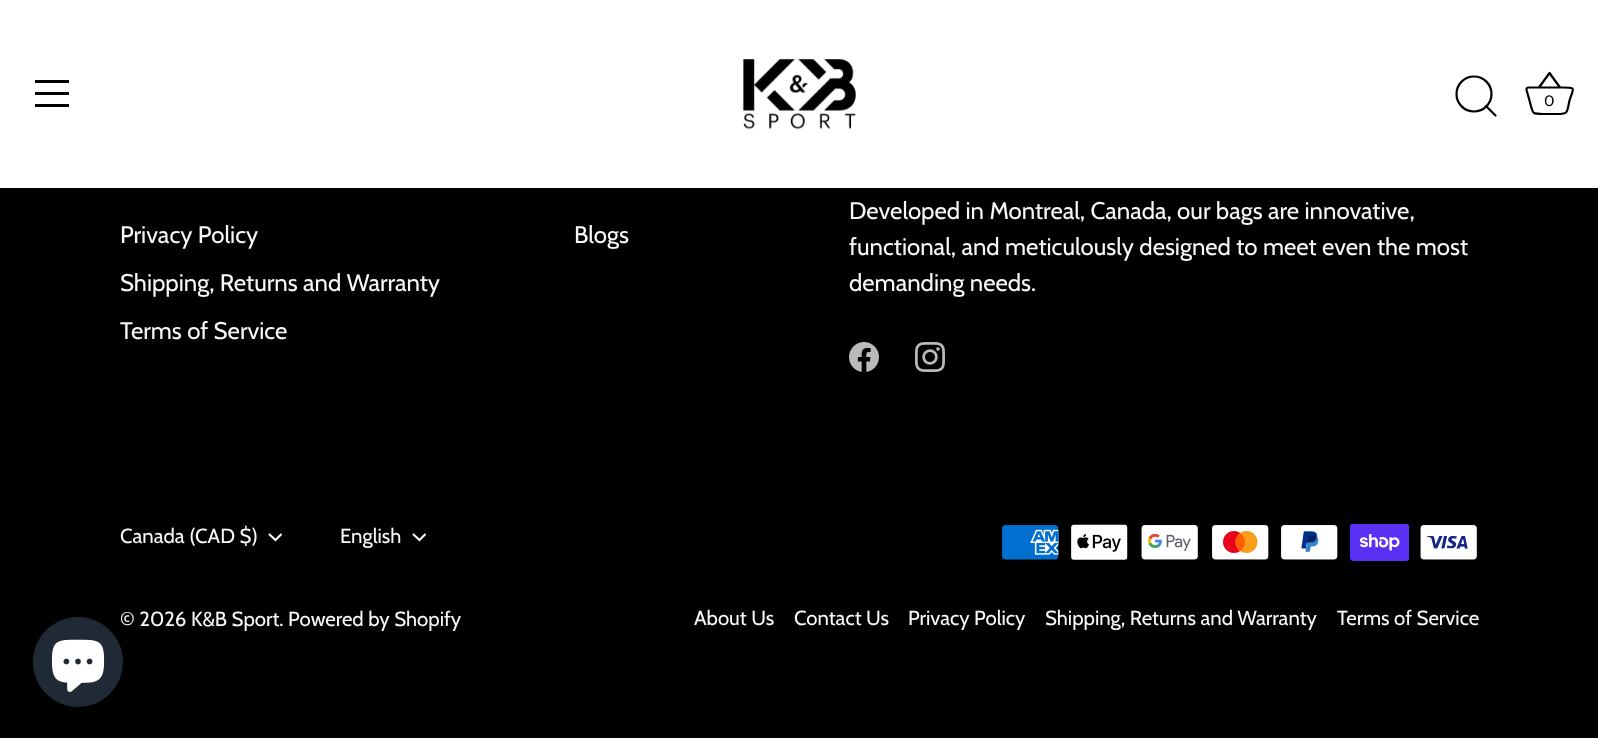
<svg xmlns="http://www.w3.org/2000/svg" width="1598" height="738" viewBox="0 0 1598 738">
  <rect width="100%" height="100%" fill="rgb(0,0,0)"/>
  <rect x="0" y="0" width="1598" height="188" fill="rgb(255,255,255)"/>
  <rect x="35" y="80" width="34" height="3" fill="rgb(0,0,0)"/>
  <rect x="35" y="92" width="34" height="3" fill="rgb(0,0,0)"/>
  <rect x="35" y="104" width="34" height="3" fill="rgb(0,0,0)"/>
  <image x="743" y="59" width="113" height="70" href="pic1.png"/>
  <circle cx="1474" cy="94" r="17.5" fill="none" stroke="rgb(0,0,0)" stroke-width="2.2"/>
  <path d="M1495.5 115.5L1486 106" fill="none" stroke="rgb(0,0,0)" stroke-width="2.2" stroke-linecap="round" stroke-linejoin="round"/>
  <path d="M1528.5 87.5C1525 87.5 1527 92 1527.5 93.5L1529.5 100.5C1533.5 114.5 1530.5 114 1545 114H1558C1569 114 1567 111 1569.5 100.5C1573.5 88 1576.5 87.5 1563.5 87.5H1528.5M1539 87.5L1549.5 73L1560 87.5" fill="none" stroke="rgb(0,0,0)" stroke-width="2.2" stroke-linejoin="round"/>
  <text x="1544" y="106" font-family="Cabin" font-size="15" fill="rgb(0,0,0)">0</text>
  <g font-family="Cabin" font-size="24" fill="rgb(248,248,248)">
    <text x="120" y="243">Privacy Policy</text>
    <text x="120" y="291">Shipping, Returns and Warranty</text>
    <text x="120" y="339">Terms of Service</text>
    <text x="574" y="243">Blogs</text>
    <text>
      <tspan x="849" y="219">Developed in Montreal, Canada, our bags are innovative,</tspan>
      <tspan x="849" y="255">functional, and meticulously designed to meet even the most</tspan>
      <tspan x="849" y="291">demanding needs.</tspan>
    </text>
  </g>
  <image x="849" y="342" width="30" height="30" href="pic2.png"/>
  <image x="915" y="342" width="30" height="30" href="pic3.png"/>
  <text x="120" y="543" font-family="Cabin" font-size="20.4" fill="rgb(248,248,248)">Canada (CAD $)</text>
  <path d="M269.5 534.5L275.5 540L281 534.5" fill="none" stroke="rgb(248,248,248)" stroke-width="2.1" stroke-linecap="round"/>
  <text x="340" y="543" font-family="Cabin" font-size="20.4" fill="rgb(248,248,248)">English</text>
  <path d="M413.5 534.5L419.5 540L425 534.5" fill="none" stroke="rgb(248,248,248)" stroke-width="2.1" stroke-linecap="round"/>
  <text x="120" y="626" font-family="Cabin" font-size="20.4" fill="rgb(248,248,248)">© 2026 K&amp;B Sport. Powered by Shopify</text>
  <image x="1002" y="525" width="57" height="35" href="pic4.png"/>
  <image x="1071" y="524" width="57" height="36" href="pic5.png"/>
  <image x="1141" y="525" width="57" height="35" href="pic6.png"/>
  <image x="1212" y="525" width="57" height="35" href="pic7.png"/>
  <image x="1281" y="525" width="57" height="35" href="pic8.png"/>
  <image x="1350" y="524" width="59" height="37" href="pic9.png"/>
  <image x="1420" y="525" width="57" height="35" href="pic10.png"/>
  <g font-family="Cabin" font-size="20.4" fill="rgb(248,248,248)">
    <text x="694" y="625">About Us</text>
    <text x="794" y="625">Contact Us</text>
    <text x="908" y="625">Privacy Policy</text>
    <text x="1045" y="625">Shipping, Returns and Warranty</text>
    <text x="1337" y="625">Terms of Service</text>
  </g>
  <circle cx="78" cy="662" r="45" fill="rgb(32,42,54)"/>
  <image x="51" y="639" width="54" height="53" href="pic11.png"/>
</svg>
